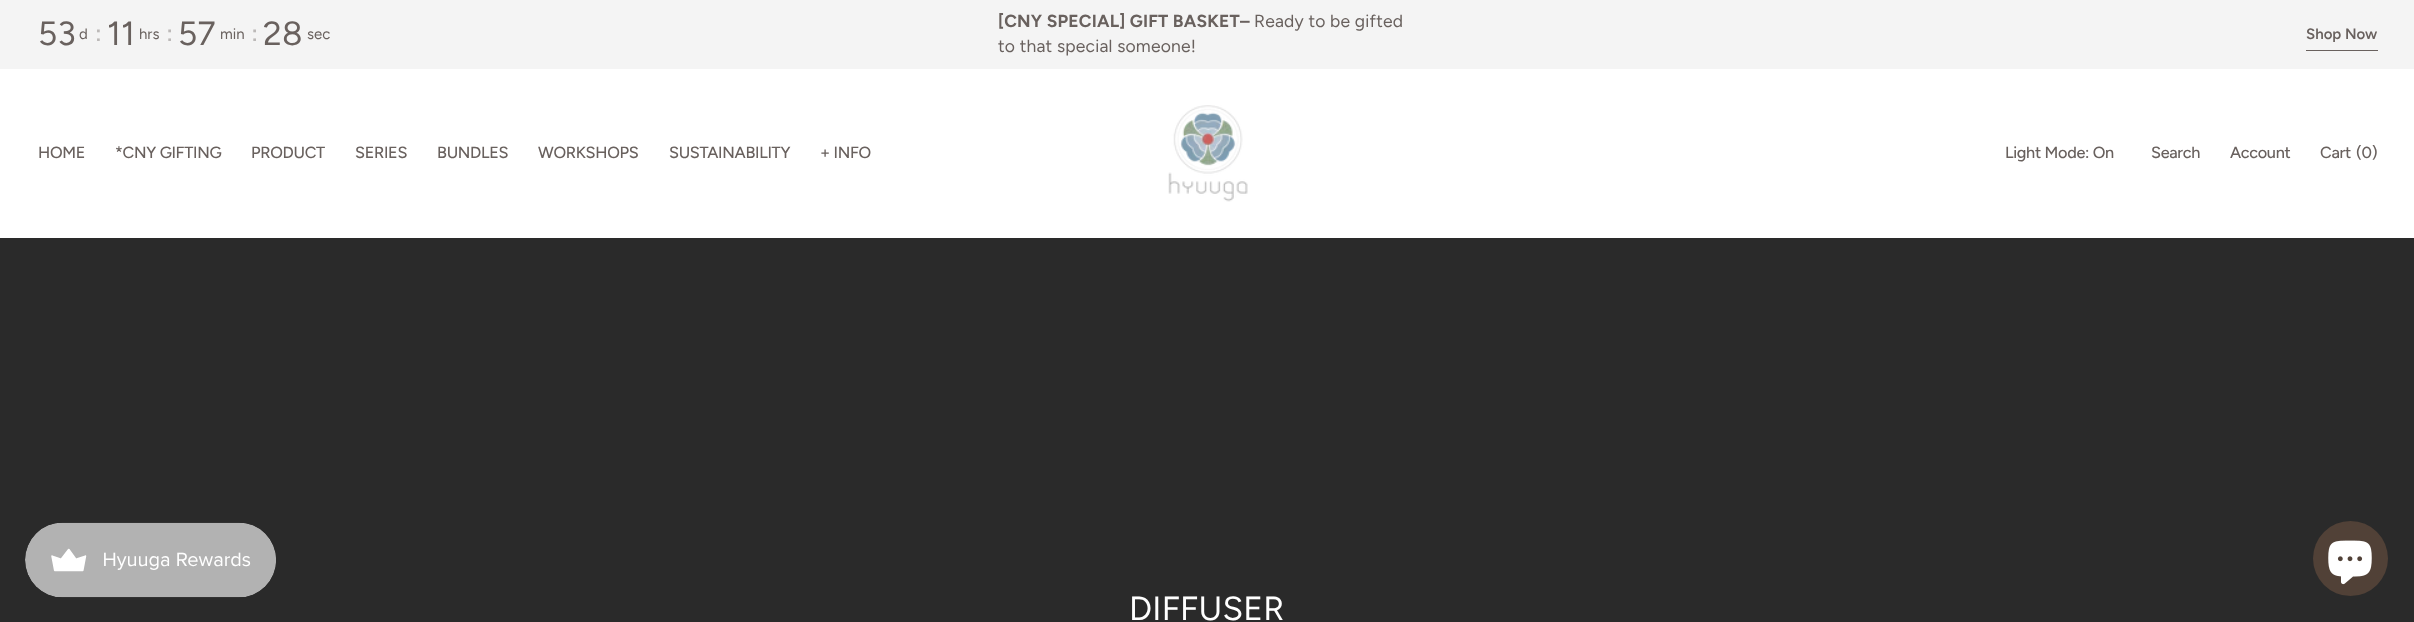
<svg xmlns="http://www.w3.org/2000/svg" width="2414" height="622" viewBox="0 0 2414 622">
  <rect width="100%" height="100%" fill="rgb(255,255,255)"/>
  <rect x="0" y="0" width="2414" height="69" fill="rgb(244,244,244)"/>
  <text x="38" y="45" font-family="Figtree" font-size="33.5" letter-spacing="0.25" fill="rgb(105,97,94)">53</text>
  <text x="79" y="39" font-family="Figtree" font-size="15" fill="rgb(105,97,94)">d</text>
  <image x="97" y="29" width="3" height="12" href="pic1.png"/>
  <text x="107" y="45" font-family="Figtree" font-size="33.5" letter-spacing="0.25" fill="rgb(105,97,94)">11</text>
  <text x="139" y="39" font-family="Figtree" font-size="15" fill="rgb(105,97,94)">hrs</text>
  <image x="168" y="29" width="3" height="12" href="pic2.png"/>
  <text x="178" y="45" font-family="Figtree" font-size="33.5" letter-spacing="0.25" fill="rgb(105,97,94)">57</text>
  <text x="220" y="39" font-family="Figtree" font-size="15" fill="rgb(105,97,94)">min</text>
  <image x="253" y="29" width="3" height="12" href="pic2.png"/>
  <text x="263" y="45" font-family="Figtree" font-size="33.5" letter-spacing="0.25" fill="rgb(105,97,94)">28</text>
  <text x="307" y="39" font-family="Figtree" font-size="15" fill="rgb(105,97,94)">sec</text>
  <text x="998" y="27" font-family="Figtree" font-size="17.5" font-weight="bold" letter-spacing="0.2" fill="rgb(105,97,94)">[CNY SPECIAL] GIFT BASKET–</text>
  <g font-family="Figtree" font-size="17.5" letter-spacing="0.2" fill="rgb(105,97,94)">
    <text x="1254" y="27">Ready to be gifted</text>
    <text x="998" y="52">to that special someone!</text>
  </g>
  <text x="2306" y="39" font-family="Figtree" font-size="15" font-weight="600" fill="rgb(105,97,94)">Shop Now</text>
  <rect x="2306" y="50" width="72" height="1" fill="rgb(105,97,94)"/>
  <g font-family="Figtree" font-size="16.25" font-weight="500" letter-spacing="-0.3" fill="rgb(105,97,94)">
    <text x="38" y="158">HOME</text>
    <text x="115" y="158">*CNY GIFTING</text>
    <text x="251" y="158">PRODUCT</text>
    <text x="355" y="158">SERIES</text>
    <text x="437" y="158">BUNDLES</text>
    <text x="538" y="158">WORKSHOPS</text>
    <text x="669" y="158">SUSTAINABILITY</text>
    <text x="820" y="158">+ INFO</text>
  </g>
  <image x="1168" y="105" width="80" height="97" href="pic3.png"/>
  <g font-family="Figtree" font-size="16.25" font-weight="500" letter-spacing="-0.3" fill="rgb(105,97,94)">
    <text x="2005" y="158">Light Mode: On</text>
    <text x="2151" y="158">Search</text>
    <text x="2230" y="158">Account</text>
    <text x="2320" y="158">Cart</text>
    <text x="2356" y="158">(0)</text>
  </g>
  <rect x="0" y="238" width="2414" height="384" fill="rgb(42,42,42)"/>
  <image x="25" y="522" width="251" height="76" href="pic4.png"/>
  <circle cx="2350.5" cy="558.5" r="37.5" fill="rgb(81,65,55)"/>
  <image x="2328" y="540" width="44" height="45" href="pic5.png"/>
  <text x="1129" y="620" font-family="Figtree" font-size="33.5" letter-spacing="0.25" fill="rgb(255,255,255)">DIFFUSER</text>
</svg>
